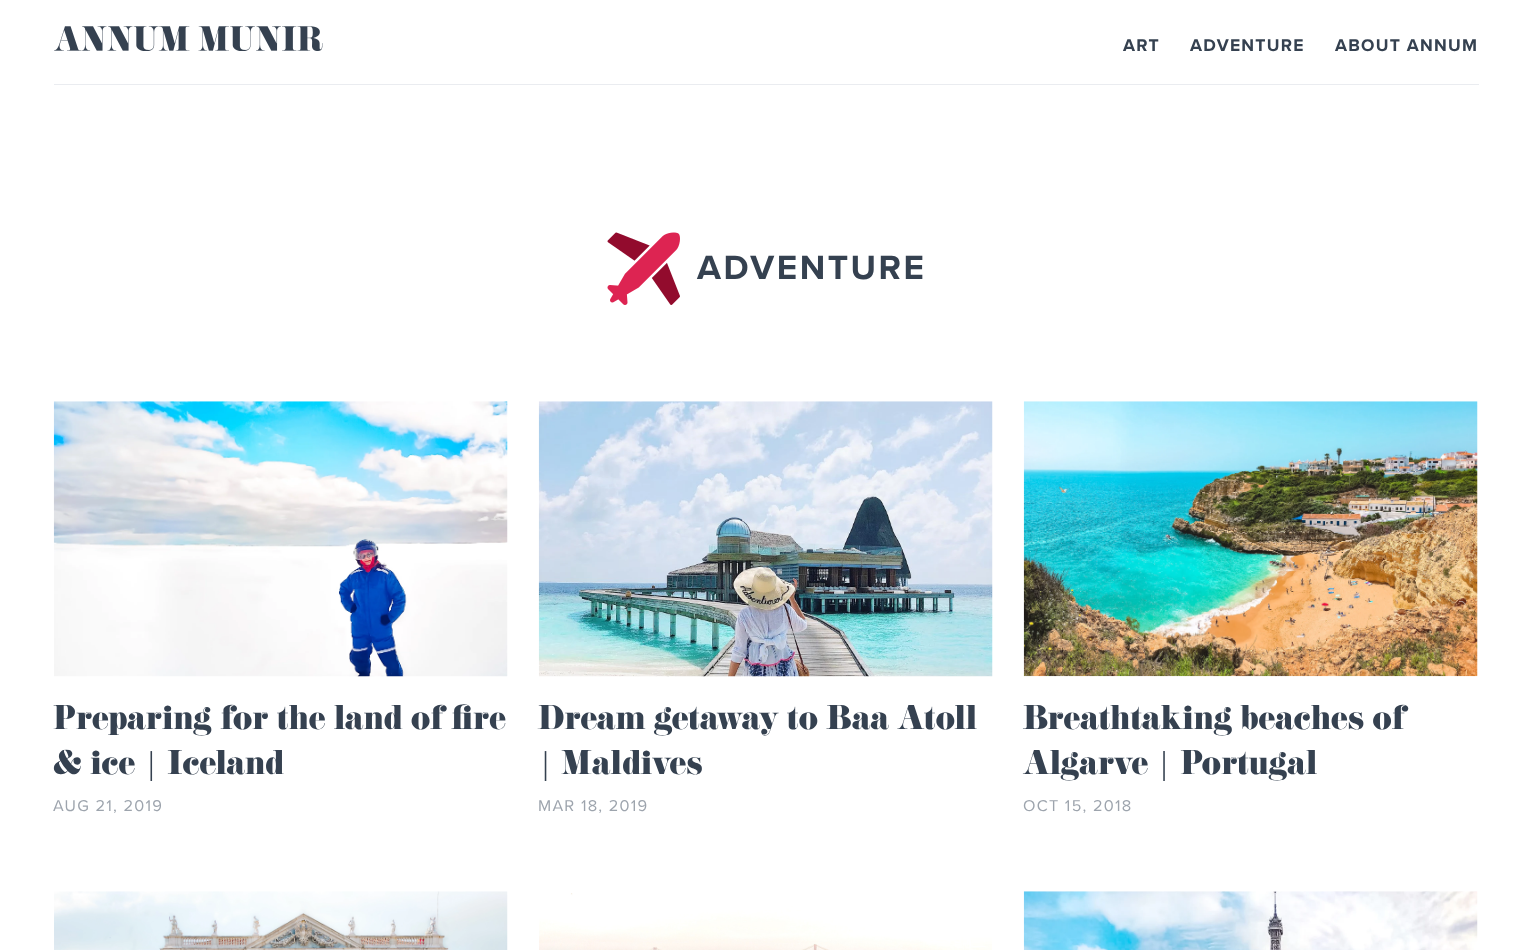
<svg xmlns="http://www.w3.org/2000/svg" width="1531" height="950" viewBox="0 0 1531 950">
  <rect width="100%" height="100%" fill="rgb(255,255,255)"/>
  <rect x="54" y="84" width="1425" height="1" fill="rgb(234,236,240)"/>
  <image x="54" y="26" width="269" height="25" href="pic1.png"/>
  <g font-family="Proxima Nova" font-size="17.5" font-weight="bold" letter-spacing="1.25" fill="rgb(53,65,80)">
    <text x="1123" y="51">ART</text>
    <text x="1190" y="51">ADVENTURE</text>
    <text x="1335" y="51">ABOUT ANNUM</text>
  </g>
  <image x="607" y="232" width="73" height="73" href="pic2.png"/>
  <text x="697" y="279" font-family="Proxima Nova" font-size="35" font-weight="bold" letter-spacing="2.5" fill="rgb(53,65,80)">ADVENTURE</text>
  <image x="53" y="401" width="455" height="276" href="pic3.png"/>
  <g font-family="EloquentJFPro" font-size="30" fill="rgb(53,65,80)">
    <text>
      <tspan x="53" y="729">Preparing for the land of fire</tspan>
      <tspan x="53" y="774">&amp; ice | Iceland</tspan>
    </text>
  </g>
  <text x="53" y="811" font-family="Proxima Nova" font-size="16.25" letter-spacing="1.25" fill="rgb(157,164,173)">AUG 21, 2019</text>
  <image x="538" y="401" width="455" height="276" href="pic4.png"/>
  <g font-family="EloquentJFPro" font-size="30" fill="rgb(53,65,80)">
    <text>
      <tspan x="538" y="729">Dream getaway to Baa Atoll</tspan>
      <tspan x="538" y="774">| Maldives</tspan>
    </text>
  </g>
  <text x="538" y="811" font-family="Proxima Nova" font-size="16.25" letter-spacing="1.25" fill="rgb(157,164,173)">MAR 18, 2019</text>
  <image x="1023" y="401" width="455" height="276" href="pic5.png"/>
  <g font-family="EloquentJFPro" font-size="30" fill="rgb(53,65,80)">
    <text>
      <tspan x="1023" y="729">Breathtaking beaches of</tspan>
      <tspan x="1023" y="774">Algarve | Portugal</tspan>
    </text>
  </g>
  <text x="1023" y="811" font-family="Proxima Nova" font-size="16.25" letter-spacing="1.25" fill="rgb(157,164,173)">OCT 15, 2018</text>
  <image x="54" y="891" width="454" height="59" href="pic6.png"/>
  <image x="539" y="893" width="453" height="57" href="pic7.png"/>
  <image x="1023" y="891" width="455" height="59" href="pic8.png"/>
</svg>
